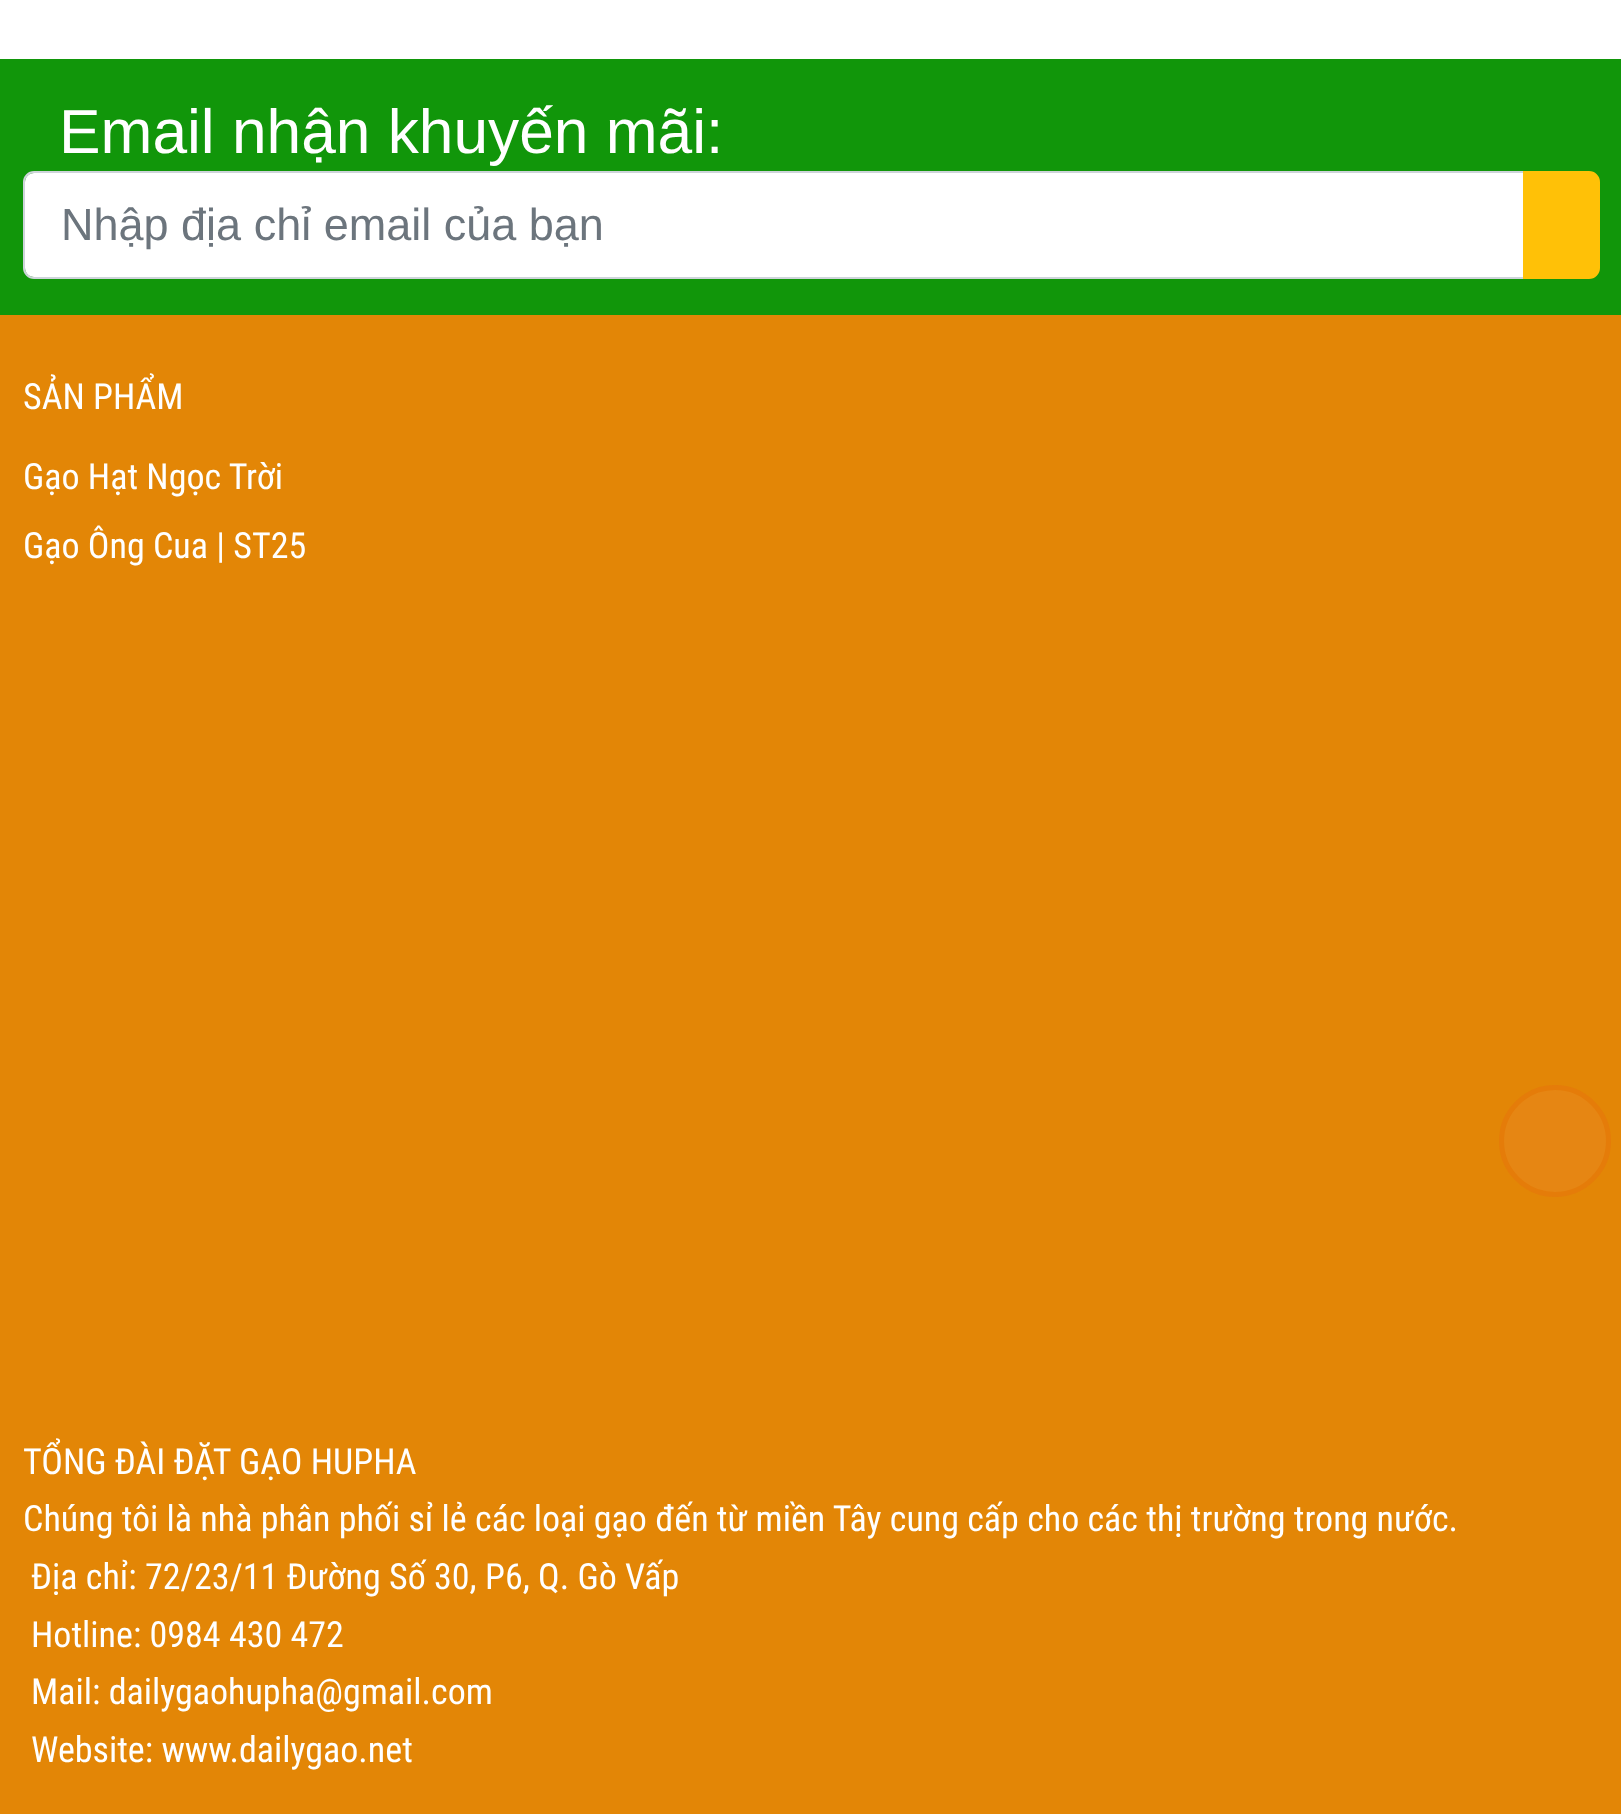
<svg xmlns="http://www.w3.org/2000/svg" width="1621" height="1814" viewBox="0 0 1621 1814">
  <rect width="100%" height="100%" fill="rgb(255,255,255)"/>
  <rect x="0" y="59" width="1621" height="256" fill="rgb(17,150,10)"/>
  <text x="59" y="153" font-family="Liberation Sans" font-size="62.25" fill="rgb(255,255,255)">Email nhận khuyến mãi:</text>
  <path d="M34 173H1523V277H34C29 277 25 273 25 268V182C25 177 29 173 34 173Z" fill="rgb(255,255,255)"/>
  <path d="M34 172H1525V278H34C28.5 278 24 273.5 24 268V182C24 176.5 28.5 172 34 172Z" fill="none" stroke="rgb(206,212,218)" stroke-width="2"/>
  <text x="61" y="240" font-family="Liberation Sans" font-size="45" fill="rgb(108,117,125)">Nhập địa chỉ email của bạn</text>
  <path d="M1524 172H1589C1594.5 172 1599 176.5 1599 182V268C1599 273.5 1594.5 278 1589 278H1524Z" fill="rgb(255,193,7)" stroke="rgb(255,193,7)" stroke-width="2"/>
  <rect x="0" y="315" width="1621" height="1499" fill="rgb(227,134,6)"/>
  <g font-family="Roboto Condensed" font-size="36" fill="rgb(255,255,255)">
    <text x="23" y="409">SẢN PHẨM</text>
    <text>
      <tspan x="23" y="489">Gạo Hạt Ngọc Trời</tspan>
      <tspan x="23" y="558">Gạo Ông Cua | ST25</tspan>
    </text>
    <text>
      <tspan x="23" y="1474">TỔNG ĐÀI ĐẶT GẠO HUPHA</tspan>
      <tspan x="23" y="1531">Chúng tôi là nhà phân phối sỉ lẻ các loại gạo đến từ miền Tây cung cấp cho các thị trường trong nước.</tspan>
    </text>
    <text>
      <tspan x="31" y="1589">Địa chỉ: 72/23/11 Đường Số 30, P6, Q. Gò Vấp</tspan>
      <tspan x="31" y="1647">Hotline: 0984 430 472</tspan>
      <tspan x="31" y="1704">Mail: dailygaohupha@gmail.com</tspan>
      <tspan x="31" y="1762">Website: www.dailygao.net</tspan>
    </text>
  </g>
  <circle cx="1555" cy="1141" r="53.5" fill="rgb(230,134,19)" stroke="rgb(229,124,9)" stroke-width="5"/>
</svg>
